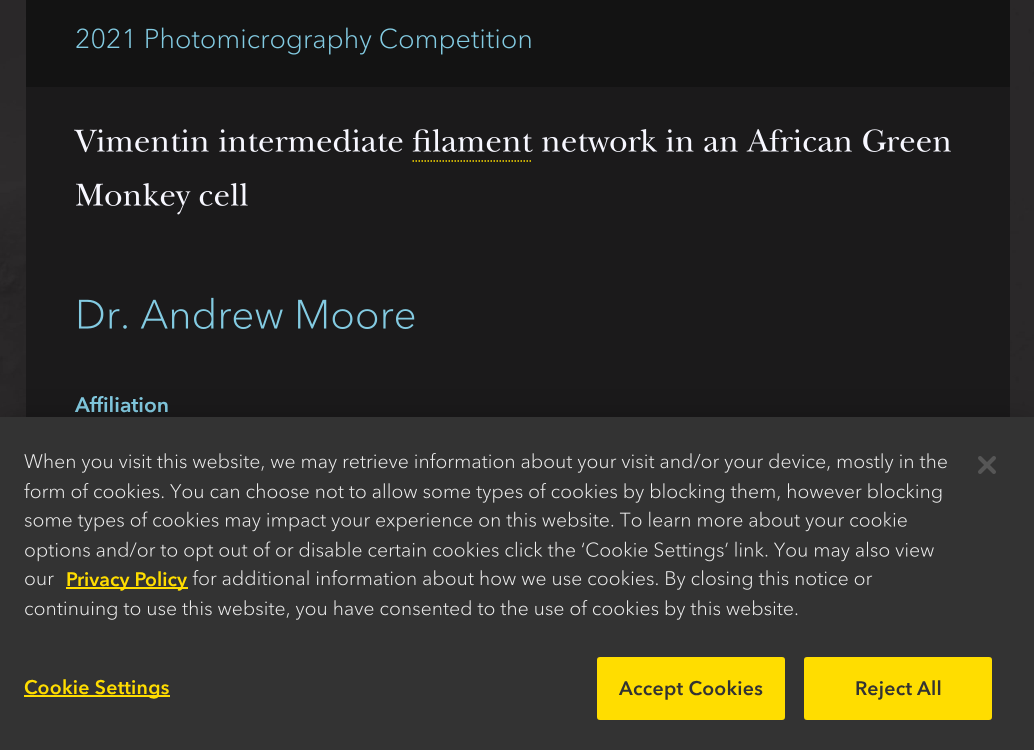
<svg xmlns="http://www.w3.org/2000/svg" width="1034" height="750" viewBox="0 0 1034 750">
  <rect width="100%" height="100%" fill="rgb(255,255,255)"/>
  <image x="0" y="0" width="1034" height="417" href="pic1.png"/>
  <rect x="26" y="87" width="984" height="330" fill="rgb(27,26,27)"/>
  <rect x="26" y="0" width="984" height="87" fill="rgb(19,19,19)"/>
  <image x="76" y="27" width="455" height="28" href="pic2.png"/>
  <image x="74" y="129" width="329" height="24" href="pic3.png"/>
  <image x="412" y="129" width="121" height="23" href="pic4.png"/>
  <image x="542" y="129" width="409" height="24" href="pic5.png"/>
  <path d="M412.5 161H532.5" fill="none" stroke="rgb(255,221,0)" stroke-width="1.5" stroke-dasharray="1.5 1.5"/>
  <image x="76" y="183" width="172" height="32" href="pic6.png"/>
  <image x="78" y="297" width="337" height="32" href="pic7.png"/>
  <text x="75" y="412" font-family="Avenir Next" font-size="21" font-weight="bold" fill="rgb(131,203,226)">Affiliation</text>
  <rect x="0" y="417" width="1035" height="333" fill="rgba(0,0,0,0.2)" filter="blur(13.5px)"/>
  <rect x="0" y="417" width="1034" height="333" fill="rgb(51,51,51)"/>
  <image x="978" y="456" width="18" height="18" href="pic8.png"/>
  <image x="24" y="453" width="923" height="20" href="pic9.png"/>
  <image x="24" y="483" width="918" height="20" href="pic10.png"/>
  <image x="24" y="511" width="883" height="21" href="pic11.png"/>
  <image x="25" y="541" width="909" height="21" href="pic12.png"/>
  <image x="25" y="575" width="29" height="11" href="pic13.png"/>
  <rect x="66" y="587" width="122" height="2" fill="rgb(255,221,0)"/>
  <text x="66" y="586" font-family="Avenir Next" font-size="19.5" font-weight="bold" fill="rgb(255,221,0)">Privacy Policy</text>
  <image x="192" y="570" width="681" height="20" href="pic14.png"/>
  <image x="25" y="600" width="773" height="20" href="pic15.png"/>
  <rect x="24" y="695" width="146" height="2" fill="rgb(255,221,0)"/>
  <text x="24" y="694" font-family="Avenir Next" font-size="19.5" font-weight="bold" letter-spacing="0.25" fill="rgb(255,221,0)">Cookie Settings</text>
  <rect x="598" y="658" width="186" height="61" rx="2" fill="rgb(255,221,0)" stroke="rgb(255,221,0)" stroke-width="2"/>
  <text x="619" y="695" font-family="Avenir Next" font-size="19.5" font-weight="bold" letter-spacing="0.25" fill="rgb(51,51,51)">Accept Cookies</text>
  <rect x="805" y="658" width="186" height="61" rx="2" fill="rgb(255,221,0)" stroke="rgb(255,221,0)" stroke-width="2"/>
  <text x="855" y="695" font-family="Avenir Next" font-size="19.5" font-weight="bold" letter-spacing="0.25" fill="rgb(51,51,51)">Reject All</text>
</svg>
